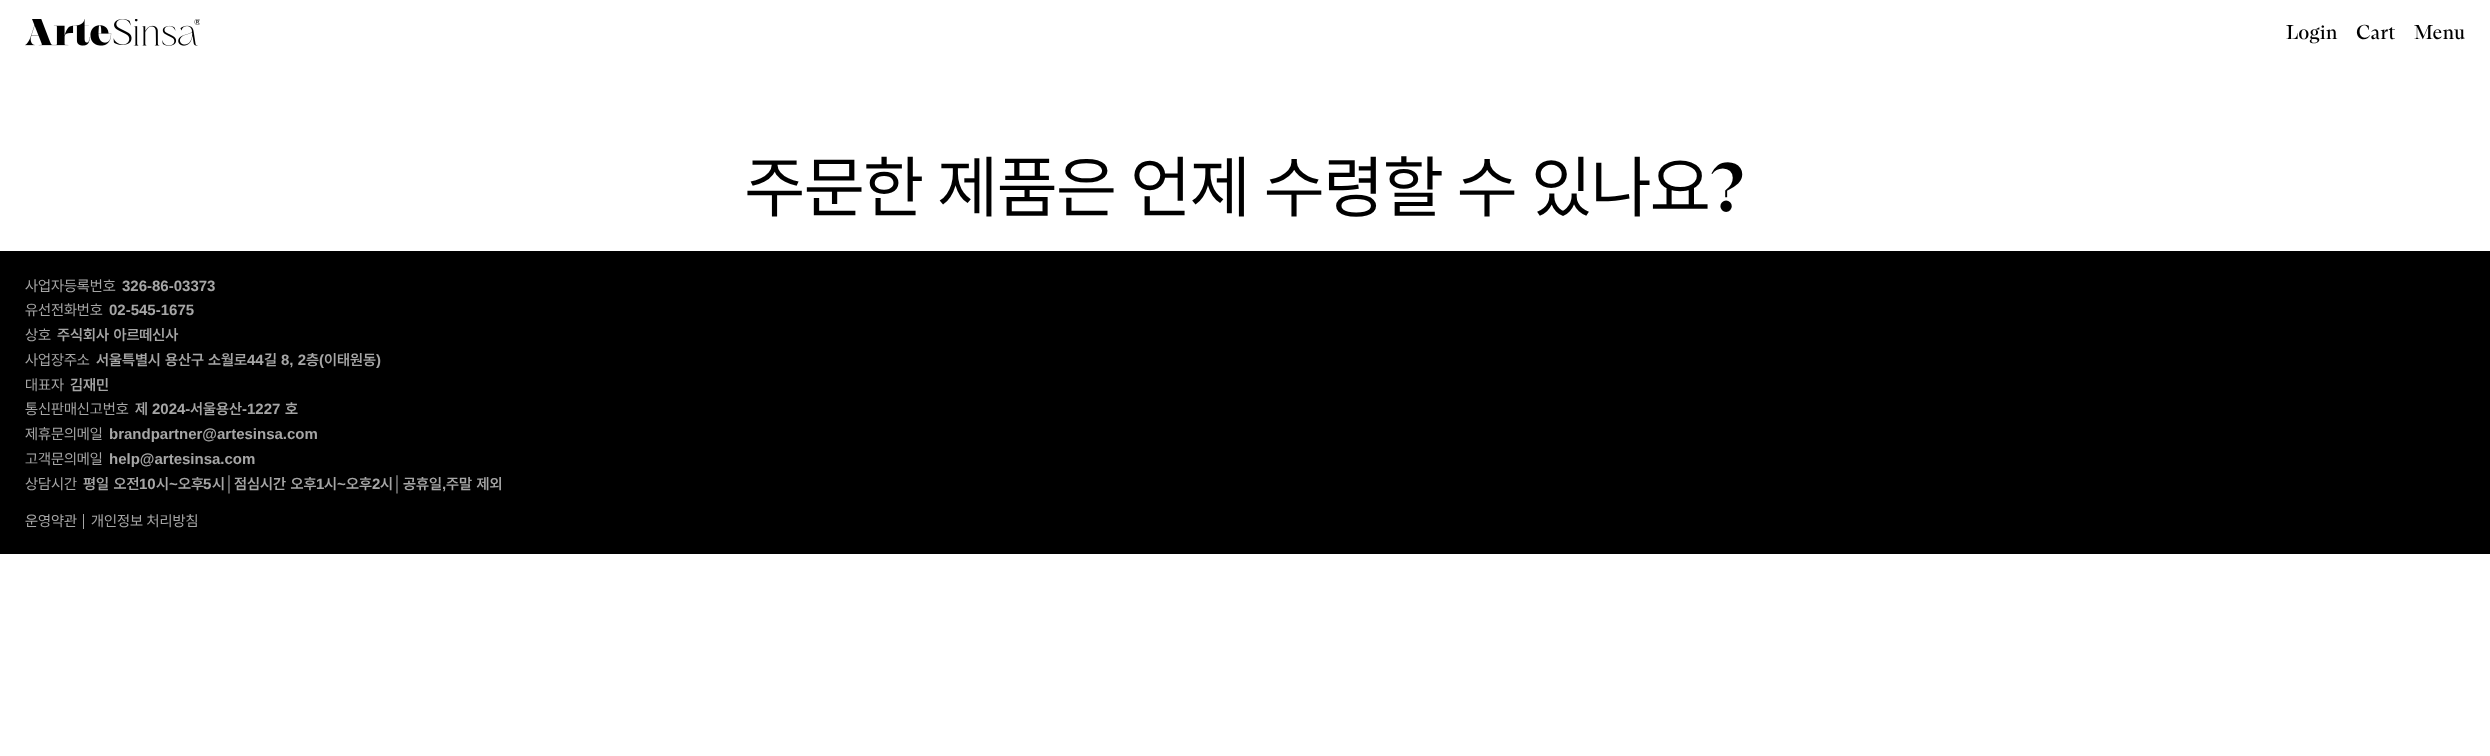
<svg xmlns="http://www.w3.org/2000/svg" width="2490" height="756" viewBox="0 0 2490 756">
  <rect width="100%" height="100%" fill="rgb(255,255,255)"/>
  <image x="25" y="19" width="175" height="27" href="pic1.png"/>
  <g font-family="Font" font-size="20" fill="rgb(0,0,0)">
    <text x="2286" y="39">Login</text>
    <text x="2356" y="39">Cart</text>
    <text x="2414" y="39">Menu</text>
  </g>
  <text x="745" y="211" word-spacing="-2.5" font-family="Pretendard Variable" font-size="68.75" fill="rgb(0,0,0)">주문한 제품은 언제 수령할 수 있나요</text>
  <text x="1710" y="211" font-family="Font" font-size="68.75" font-weight="bold" fill="rgb(0,0,0)">?</text>
  <rect x="0" y="251" width="2490" height="303" fill="rgb(0,0,0)"/>
  <text x="25" y="291" font-family="Pretendard Variable" font-size="15" fill="rgb(166,166,166)">사업자등록번호</text>
  <text x="122" y="291" font-family="Liberation Sans" font-size="15" font-weight="bold" fill="rgb(166,166,166)">326-86-03373</text>
  <text x="25" y="315" font-family="Pretendard Variable" font-size="15" fill="rgb(166,166,166)">유선전화번호</text>
  <text x="109" y="315" font-family="Liberation Sans" font-size="15" font-weight="bold" fill="rgb(166,166,166)">02-545-1675</text>
  <text x="25" y="340" font-family="Pretendard Variable" font-size="15" fill="rgb(166,166,166)">상호</text>
  <text x="57" y="340" word-spacing="1" font-family="Pretendard Variable" font-size="15" font-weight="600" fill="rgb(166,166,166)">주식회사 아르떼신사</text>
  <text x="25" y="365" font-family="Pretendard Variable" font-size="15" fill="rgb(166,166,166)">사업장주소</text>
  <g font-family="Pretendard Variable" font-size="15" font-weight="600" fill="rgb(166,166,166)">
    <text x="96" y="365">서울특별시</text>
    <text x="165" y="365">용산구</text>
    <text x="208" y="365">소월로</text>
  </g>
  <text x="247" y="365" font-family="Liberation Sans" font-size="15" font-weight="bold" fill="rgb(166,166,166)">44</text>
  <text x="264" y="365" font-family="Pretendard Variable" font-size="15" font-weight="600" fill="rgb(166,166,166)">길</text>
  <text x="281" y="365" font-family="Liberation Sans" font-size="15" font-weight="bold" fill="rgb(166,166,166)">8, 2</text>
  <text x="306" y="365" font-family="Pretendard Variable" font-size="15" font-weight="600" fill="rgb(166,166,166)">층</text>
  <text x="319" y="365" font-family="Liberation Sans" font-size="15" font-weight="bold" fill="rgb(166,166,166)">(</text>
  <text x="324" y="365" font-family="Pretendard Variable" font-size="15" font-weight="600" fill="rgb(166,166,166)">이태원동</text>
  <text x="376" y="365" font-family="Liberation Sans" font-size="15" font-weight="bold" fill="rgb(166,166,166)">)</text>
  <text x="25" y="390" font-family="Pretendard Variable" font-size="15" fill="rgb(166,166,166)">대표자</text>
  <text x="70" y="390" font-family="Pretendard Variable" font-size="15" font-weight="600" fill="rgb(166,166,166)">김재민</text>
  <text x="25" y="414" font-family="Pretendard Variable" font-size="15" fill="rgb(166,166,166)">통신판매신고번호</text>
  <text x="135" y="414" font-family="Pretendard Variable" font-size="15" font-weight="600" fill="rgb(166,166,166)">제</text>
  <text x="152" y="414" font-family="Liberation Sans" font-size="15" font-weight="bold" fill="rgb(166,166,166)">2024-</text>
  <text x="190" y="414" font-family="Pretendard Variable" font-size="15" font-weight="600" fill="rgb(166,166,166)">서울용산</text>
  <text x="242" y="414" font-family="Liberation Sans" font-size="15" font-weight="bold" fill="rgb(166,166,166)">-1227</text>
  <text x="285" y="414" font-family="Pretendard Variable" font-size="15" font-weight="600" fill="rgb(166,166,166)">호</text>
  <text x="25" y="439" font-family="Pretendard Variable" font-size="15" fill="rgb(166,166,166)">제휴문의메일</text>
  <text x="109" y="439" font-family="Liberation Sans" font-size="15" font-weight="bold" fill="rgb(166,166,166)">brandpartner@artesinsa.com</text>
  <text x="25" y="464" font-family="Pretendard Variable" font-size="15" fill="rgb(166,166,166)">고객문의메일</text>
  <text x="109" y="464" font-family="Liberation Sans" font-size="15" font-weight="bold" fill="rgb(166,166,166)">help@artesinsa.com</text>
  <text x="25" y="489" font-family="Pretendard Variable" font-size="15" fill="rgb(166,166,166)">상담시간</text>
  <text x="83" y="489" word-spacing="1" font-family="Pretendard Variable" font-size="15" font-weight="600" fill="rgb(166,166,166)">평일 오전</text>
  <text x="139" y="489" font-family="Liberation Sans" font-size="15" font-weight="bold" fill="rgb(166,166,166)">10</text>
  <text x="156" y="489" font-family="Pretendard Variable" font-size="15" font-weight="600" fill="rgb(166,166,166)">시</text>
  <text x="169" y="489" font-family="Liberation Sans" font-size="15" font-weight="bold" fill="rgb(166,166,166)">~</text>
  <text x="178" y="489" font-family="Pretendard Variable" font-size="15" font-weight="600" fill="rgb(166,166,166)">오후</text>
  <text x="203" y="489" font-family="Liberation Sans" font-size="15" font-weight="bold" fill="rgb(166,166,166)">5</text>
  <text x="212" y="489" font-family="Pretendard Variable" font-size="15" font-weight="600" fill="rgb(166,166,166)">시</text>
  <text x="225" y="489" font-family="Liberation Sans" font-size="15" font-weight="bold" fill="rgb(166,166,166)">│</text>
  <text x="234" y="489" word-spacing="1" font-family="Pretendard Variable" font-size="15" font-weight="600" fill="rgb(166,166,166)">점심시간 오후</text>
  <text x="316" y="489" font-family="Liberation Sans" font-size="15" font-weight="bold" fill="rgb(166,166,166)">1</text>
  <text x="324" y="489" font-family="Pretendard Variable" font-size="15" font-weight="600" fill="rgb(166,166,166)">시</text>
  <text x="337" y="489" font-family="Liberation Sans" font-size="15" font-weight="bold" fill="rgb(166,166,166)">~</text>
  <text x="346" y="489" font-family="Pretendard Variable" font-size="15" font-weight="600" fill="rgb(166,166,166)">오후</text>
  <text x="372" y="489" font-family="Liberation Sans" font-size="15" font-weight="bold" fill="rgb(166,166,166)">2</text>
  <text x="380" y="489" font-family="Pretendard Variable" font-size="15" font-weight="600" fill="rgb(166,166,166)">시</text>
  <text x="393" y="489" font-family="Liberation Sans" font-size="15" font-weight="bold" fill="rgb(166,166,166)">│</text>
  <g font-family="Pretendard Variable" font-size="15" font-weight="600" fill="rgb(166,166,166)">
    <text x="403" y="489">공휴일</text>
    <text x="446" y="489" word-spacing="1">주말 제외</text>
  </g>
  <text x="442" y="489" font-family="Liberation Sans" font-size="15" font-weight="bold" fill="rgb(166,166,166)">,</text>
  <rect x="83" y="514" width="1" height="15" fill="rgb(166,166,166)"/>
  <g font-family="Pretendard Variable" font-size="15" fill="rgb(166,166,166)">
    <text x="25" y="526">운영약관</text>
    <text x="91" y="526">개인정보 처리방침</text>
  </g>
</svg>
